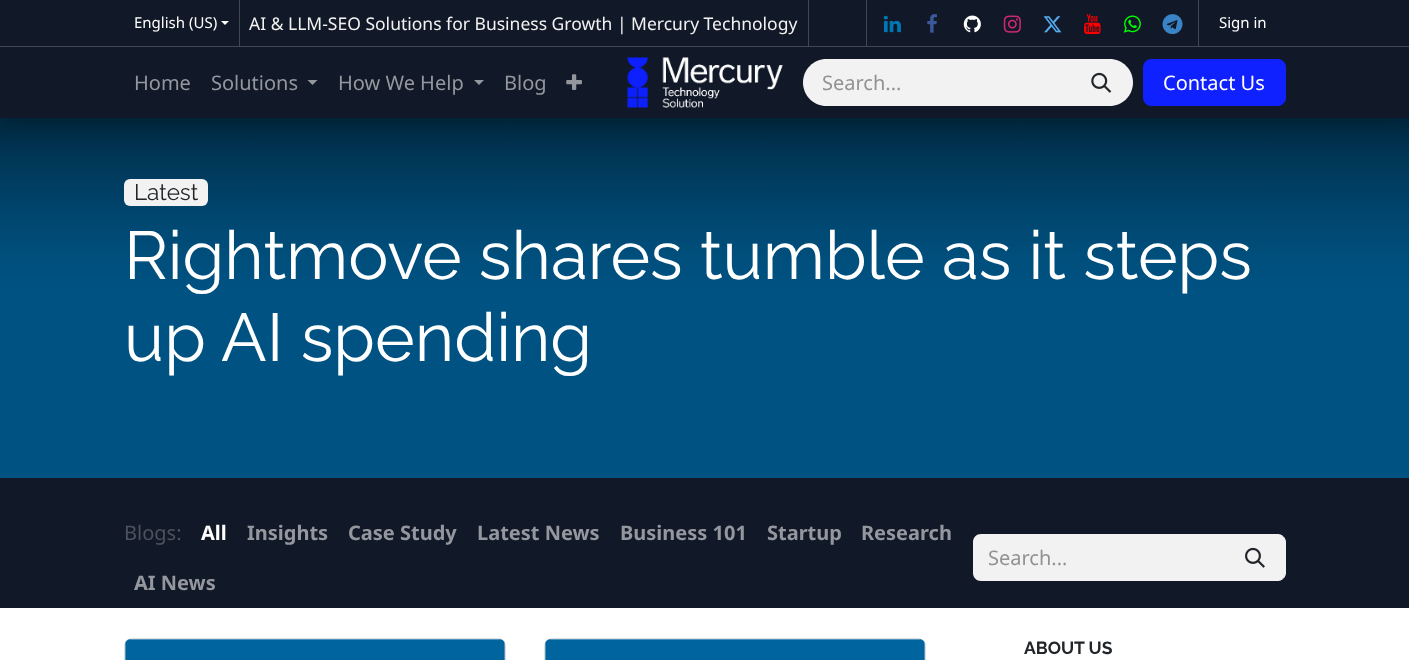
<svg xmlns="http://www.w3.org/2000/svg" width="1409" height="660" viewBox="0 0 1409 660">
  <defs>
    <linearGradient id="g1" gradientUnits="userSpaceOnUse" x1="705" y1="117" x2="705" y2="298"><stop offset="0" stop-color="rgb(0,41,65)"/><stop offset="0.19" stop-color="rgb(0,52,82)"/><stop offset="0.34" stop-color="rgb(0,60,95)"/><stop offset="0.47" stop-color="rgb(0,66,105)"/><stop offset="0.56" stop-color="rgb(0,71,112)"/><stop offset="0.65" stop-color="rgb(0,74,117)"/><stop offset="0.73" stop-color="rgb(0,77,121)"/><stop offset="0.8" stop-color="rgb(0,79,125)"/><stop offset="0.86" stop-color="rgb(0,80,127)"/><stop offset="0.91" stop-color="rgb(0,81,129)"/><stop offset="0.95" stop-color="rgb(0,82,130)"/><stop offset="1" stop-color="rgb(0,82,130)"/></linearGradient>
  </defs>
  <rect width="100%" height="100%" fill="rgb(255,255,255)"/>
  <rect x="0" y="118" width="1409" height="180" fill="url(#g1)"/>
  <rect x="0" y="10" width="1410" height="118" fill="rgba(0,0,0,0.15)" filter="blur(10px)"/>
  <rect x="0" y="0" width="1409" height="118" fill="rgb(17,24,39)"/>
  <rect x="0" y="46" width="1409" height="1" fill="rgb(65,70,82)"/>
  <rect x="239" y="0" width="1" height="46" fill="rgb(65,70,82)"/>
  <text x="134" y="28" font-family="Noto Sans" font-size="15" fill="rgb(255,255,255)">English (US)</text>
  <path d="M221 21H229L225 25Z" fill="rgb(255,255,255)"/>
  <rect x="808" y="0" width="1" height="46" fill="rgb(65,70,82)"/>
  <text x="249" y="30" font-family="Noto Sans" font-size="17.5" fill="rgb(243,242,242)">AI &amp; LLM-SEO Solutions for Business Growth | Mercury Technology</text>
  <rect x="866" y="0" width="1" height="46" fill="rgb(65,70,82)"/>
  <image x="883" y="15" width="18" height="18" href="pic1.png"/>
  <image x="927" y="14" width="10" height="19" href="pic2.png"/>
  <image x="963" y="15" width="18" height="18" href="pic3.png"/>
  <image x="1003" y="15" width="18" height="18" href="pic4.png"/>
  <image x="1043" y="16" width="19" height="17" href="pic5.png"/>
  <image x="1084" y="14" width="17" height="21" href="pic6.png"/>
  <image x="1123" y="15" width="18" height="18" href="pic7.png"/>
  <image x="1162" y="14" width="21" height="21" href="pic8.png"/>
  <rect x="1198" y="0" width="1" height="46" fill="rgb(65,70,82)"/>
  <text x="1219" y="28" font-family="Noto Sans" font-size="15" fill="rgb(255,255,255)">Sign in</text>
  <g font-family="Noto Sans" font-size="20" fill="rgb(148,151,158)">
    <text x="134" y="90">Home</text>
    <text x="211" y="90">Solutions</text>
  </g>
  <path d="M307.5 80H317.5L312.5 85Z" fill="rgb(148,151,158)"/>
  <text x="338" y="90" font-family="Noto Sans" font-size="20" fill="rgb(148,151,158)">How We Help</text>
  <path d="M474 80H484L479 85Z" fill="rgb(148,151,158)"/>
  <text x="504" y="90" font-family="Noto Sans" font-size="20" fill="rgb(148,151,158)">Blog</text>
  <image x="566" y="74" width="16" height="16" href="pic9.png"/>
  <image x="627" y="57" width="156" height="51" href="pic10.png"/>
  <path d="M826.5 59H1071V106H826.5C813.5 106 803 95.5 803 82.5C803 69.5 813.5 59 826.5 59Z" fill="rgb(243,242,242)"/>
  <text x="822" y="90" font-family="Noto Sans" font-size="20" fill="rgb(144,146,148)">Search...</text>
  <path d="M1070 59H1109.5C1122.5 59 1133 69.5 1133 82.5C1133 95.5 1122.5 106 1109.5 106H1070Z" fill="rgb(243,242,242)"/>
  <image x="1091" y="72" width="21" height="21" href="pic11.png"/>
  <rect x="1143.5" y="59.5" width="142" height="46" rx="7.5" fill="rgb(15,33,255)" stroke="rgb(15,33,255)"/>
  <text x="1163" y="90" font-family="Noto Sans" font-size="20" fill="rgb(255,255,255)">Contact Us</text>
  <rect x="0" y="298" width="1409" height="180" fill="rgb(0,82,130)"/>
  <rect x="124" y="179" width="84" height="27" rx="6" fill="rgb(243,242,242)"/>
  <text x="134" y="200" font-family="Raleway" font-size="22.5" fill="rgb(33,37,41)">Latest</text>
  <g font-family="Raleway" font-size="67.6" fill="rgb(255,255,255)">
    <text>
      <tspan x="124" y="279">Rightmove shares tumble as it steps</tspan>
      <tspan x="124" y="361">up AI spending</tspan>
    </text>
  </g>
  <rect x="0" y="478" width="1409" height="130" fill="rgb(17,24,39)"/>
  <text x="124" y="540" font-family="Noto Sans" font-size="20" fill="rgb(77,82,93)">Blogs:</text>
  <text x="201" y="540" font-family="Noto Sans" font-size="20" font-weight="bold" fill="rgb(255,255,255)">All</text>
  <g font-family="Noto Sans" font-size="20" font-weight="bold" fill="rgb(148,151,158)">
    <text x="247" y="540">Insights</text>
    <text x="348" y="540">Case Study</text>
    <text x="477" y="540">Latest News</text>
    <text x="620" y="540">Business 101</text>
    <text x="767" y="540">Startup</text>
    <text x="861" y="540">Research</text>
    <text x="134" y="590">AI News</text>
  </g>
  <path d="M981 534H1225V581H981C976.5 581 973 577.5 973 573V542C973 537.5 976.5 534 981 534Z" fill="rgb(243,242,242)"/>
  <text x="988" y="565" font-family="Noto Sans" font-size="20" fill="rgb(144,146,148)">Search...</text>
  <path d="M1224.5 534.5H1278C1282 534.5 1285.5 538 1285.5 542V573C1285.5 577 1282 580.5 1278 580.5H1224.5Z" fill="rgb(243,242,242)" stroke="rgb(243,242,242)"/>
  <image x="1245" y="547" width="20" height="21" href="pic12.png"/>
  <rect x="124.5" y="638.5" width="381" height="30" rx="7.5" fill="none" stroke="rgb(222,222,223)"/>
  <path d="M131 639H499C502.5 639 505 641.5 505 645V660H125V645C125 641.5 127.5 639 131 639Z" fill="rgb(0,100,158)"/>
  <path d="M125 645V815H505V645C505 644 505 643 504 642V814H126V642ZM131 639L128 640H502L499 639Z" fill="rgba(255,255,255,0.3)" fill-rule="evenodd"/>
  <rect x="544.5" y="638.5" width="381" height="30" rx="7.5" fill="none" stroke="rgb(222,222,223)"/>
  <path d="M551 639H919C922.5 639 925 641.5 925 645V660H545V645C545 641.5 547.5 639 551 639Z" fill="rgb(0,100,158)"/>
  <path d="M545 645V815H925V645C925 644 925 643 924 642V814H546V642ZM551 639L548 640H922L919 639Z" fill="rgba(255,255,255,0.3)" fill-rule="evenodd"/>
  <text x="1024" y="654" font-family="Raleway" font-size="17.5" font-weight="bold" fill="rgb(33,37,41)">ABOUT US</text>
</svg>
